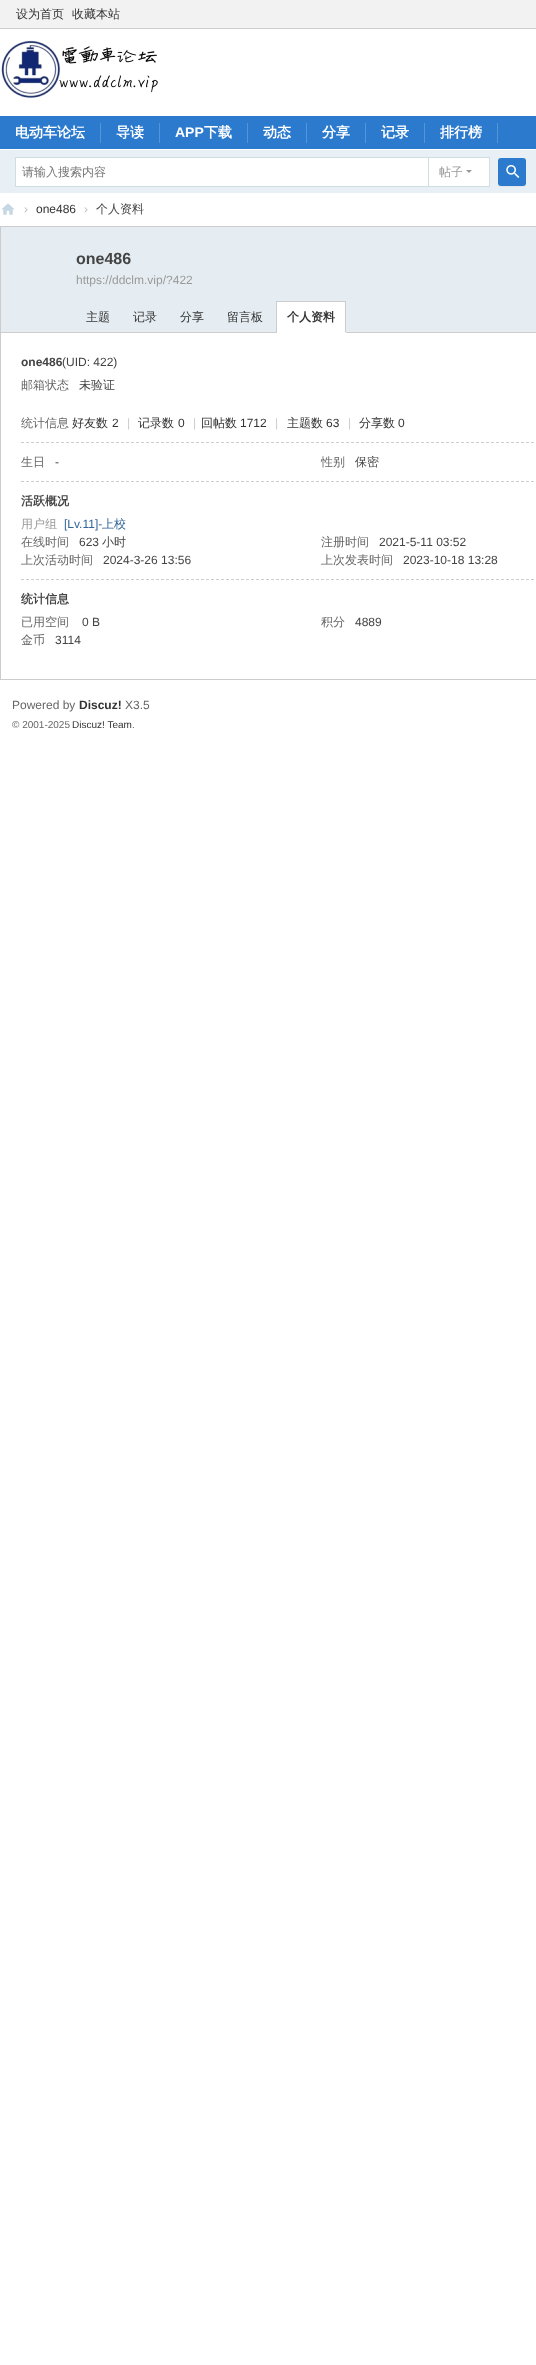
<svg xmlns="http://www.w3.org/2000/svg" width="536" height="2365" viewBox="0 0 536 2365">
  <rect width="100%" height="100%" fill="rgb(255,255,255)"/>
  <rect x="0" y="0" width="536" height="28" fill="rgb(242,242,242)"/>
  <rect x="0" y="28" width="536" height="1" fill="rgb(205,205,205)"/>
  <g font-family="WenQuanYi Zen Hei" font-size="12" font-weight="500" fill="rgb(51,51,51)">
    <text x="16" y="18">设为首页</text>
    <text x="72" y="18">收藏本站</text>
  </g>
  <image x="1" y="40" width="157" height="59" href="pic1.png"/>
  <rect x="0" y="116" width="536" height="33" fill="rgb(43,122,205)"/>
  <rect x="100" y="123" width="1" height="20" fill="rgb(85,149,215)"/>
  <text x="15" y="137" font-family="WenQuanYi Zen Hei" font-size="14" font-weight="bold" fill="rgb(255,255,255)">电动车论坛</text>
  <rect x="159" y="123" width="1" height="20" fill="rgb(85,149,215)"/>
  <text x="116" y="137" font-family="WenQuanYi Zen Hei" font-size="14" font-weight="bold" fill="rgb(255,255,255)">导读</text>
  <rect x="247" y="123" width="1" height="20" fill="rgb(85,149,215)"/>
  <text x="175" y="137" font-family="Liberation Sans" font-size="14" font-weight="bold" fill="rgb(255,255,255)">APP</text>
  <text x="204" y="137" font-family="WenQuanYi Zen Hei" font-size="14" font-weight="bold" fill="rgb(255,255,255)">下载</text>
  <rect x="306" y="123" width="1" height="20" fill="rgb(85,149,215)"/>
  <text x="263" y="137" font-family="WenQuanYi Zen Hei" font-size="14" font-weight="bold" fill="rgb(255,255,255)">动态</text>
  <rect x="365" y="123" width="1" height="20" fill="rgb(85,149,215)"/>
  <text x="322" y="137" font-family="WenQuanYi Zen Hei" font-size="14" font-weight="bold" fill="rgb(255,255,255)">分享</text>
  <rect x="424" y="123" width="1" height="20" fill="rgb(85,149,215)"/>
  <text x="381" y="137" font-family="WenQuanYi Zen Hei" font-size="14" font-weight="bold" fill="rgb(255,255,255)">记录</text>
  <rect x="497" y="123" width="1" height="20" fill="rgb(85,149,215)"/>
  <text x="440" y="137" font-family="WenQuanYi Zen Hei" font-size="14" font-weight="bold" fill="rgb(255,255,255)">排行榜</text>
  <rect x="0" y="150" width="536" height="43" fill="rgb(232,239,245)"/>
  <rect x="427" y="157" width="63" height="1" fill="rgb(207,222,227)"/>
  <rect x="489" y="157" width="1" height="30" fill="rgb(207,222,227)"/>
  <rect x="427" y="186" width="63" height="1" fill="rgb(207,222,227)"/>
  <rect x="15.5" y="157.5" width="413" height="29" fill="rgb(255,255,255)" stroke="rgb(207,222,227)"/>
  <text x="22" y="176" font-family="WenQuanYi Zen Hei" font-size="12" font-weight="500" fill="rgb(117,117,117)">请输入搜索内容</text>
  <rect x="429" y="158" width="60" height="28" fill="rgb(255,255,255)"/>
  <text x="439" y="176" font-family="WenQuanYi Zen Hei" font-size="12" font-weight="500" fill="rgb(153,153,153)">帖子</text>
  <path d="M466 170H472L469 173Z" fill="rgb(153,153,153)"/>
  <path d="M498 183C498 187.5 501 187 504.5 187H519.5C523 187 526 187.5 526 183C526 184.5 524.5 186 523 186H501C499.5 186 498 184.5 498 183Z" fill="rgb(229,229,229)"/>
  <rect x="498" y="158" width="28" height="28" rx="3" fill="rgb(43,122,205)"/>
  <image x="506" y="165" width="14" height="13" href="pic2.png"/>
  <image x="1" y="203" width="14" height="12" href="pic3.png"/>
  <text x="24" y="213" font-family="Liberation Sans" font-size="12" fill="rgb(189,189,189)">›</text>
  <text x="36" y="213" font-family="Liberation Sans" font-size="12" fill="rgb(51,51,51)">one486</text>
  <text x="84" y="213" font-family="Liberation Sans" font-size="12" fill="rgb(189,189,189)">›</text>
  <text x="96" y="213" font-family="WenQuanYi Zen Hei" font-size="12" font-weight="500" fill="rgb(68,68,68)">个人资料</text>
  <rect x="1" y="227" width="535" height="105" fill="rgb(229,237,242)"/>
  <rect x="0" y="226" width="536" height="1" fill="rgb(204,204,204)"/>
  <rect x="0" y="226" width="1" height="107" fill="rgb(204,204,204)"/>
  <text x="76" y="264" font-family="Liberation Sans" font-size="16" font-weight="bold" fill="rgb(68,68,68)">one486</text>
  <text x="76" y="284" font-family="Liberation Sans" font-size="12" fill="rgb(153,153,153)">https://ddclm.vip/?422</text>
  <rect x="1" y="332" width="535" height="1" fill="rgb(205,205,205)"/>
  <g font-family="WenQuanYi Zen Hei" font-size="12" font-weight="500" fill="rgb(51,51,51)">
    <text x="86" y="321">主题</text>
    <text x="133" y="321">记录</text>
    <text x="180" y="321">分享</text>
    <text x="227" y="321">留言板</text>
  </g>
  <rect x="277" y="302" width="68" height="30" fill="rgb(255,255,255)"/>
  <rect x="276" y="301" width="70" height="1" fill="rgb(204,204,204)"/>
  <rect x="345" y="301" width="1" height="32" fill="rgb(204,204,204)"/>
  <rect x="276" y="332" width="70" height="1" fill="rgb(255,255,255)"/>
  <rect x="276" y="301" width="1" height="32" fill="rgb(204,204,204)"/>
  <text x="287" y="321" font-family="WenQuanYi Zen Hei" font-size="12" font-weight="bold" fill="rgb(51,51,51)">个人资料</text>
  <rect x="0" y="679" width="536" height="1" fill="rgb(204,204,204)"/>
  <rect x="0" y="333" width="1" height="347" fill="rgb(204,204,204)"/>
  <path d="M21 481.5H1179" fill="none" stroke="rgb(205,205,205)" stroke-dasharray="3 2"/>
  <text x="21" y="366" font-family="Liberation Sans" font-size="12" font-weight="bold" fill="rgb(68,68,68)">one486</text>
  <text x="62" y="366" font-family="Liberation Sans" font-size="12" fill="rgb(68,68,68)">(UID: 422)</text>
  <text x="21" y="389" font-family="WenQuanYi Zen Hei" font-size="12" font-weight="500" fill="rgb(102,102,102)">邮箱状态</text>
  <text x="79" y="389" font-family="WenQuanYi Zen Hei" font-size="12" font-weight="500" fill="rgb(68,68,68)">未验证</text>
  <path d="M21 442.5H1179" fill="none" stroke="rgb(205,205,205)" stroke-dasharray="3 2"/>
  <text x="21" y="427" font-family="WenQuanYi Zen Hei" font-size="12" font-weight="500" fill="rgb(102,102,102)">统计信息</text>
  <text x="72" y="427" font-family="WenQuanYi Zen Hei" font-size="12" font-weight="500" fill="rgb(51,51,51)">好友数</text>
  <text x="112" y="427" font-family="Liberation Sans" font-size="12" fill="rgb(51,51,51)">2</text>
  <text x="127" y="427" font-family="Liberation Sans" font-size="12" fill="rgb(204,204,204)">|</text>
  <text x="138" y="427" font-family="WenQuanYi Zen Hei" font-size="12" font-weight="500" fill="rgb(51,51,51)">记录数</text>
  <text x="178" y="427" font-family="Liberation Sans" font-size="12" fill="rgb(51,51,51)">0</text>
  <text x="193" y="427" font-family="Liberation Sans" font-size="12" fill="rgb(204,204,204)">|</text>
  <text x="201" y="427" font-family="WenQuanYi Zen Hei" font-size="12" font-weight="500" fill="rgb(51,51,51)">回帖数</text>
  <text x="240" y="427" font-family="Liberation Sans" font-size="12" fill="rgb(51,51,51)">1712</text>
  <text x="275" y="427" font-family="Liberation Sans" font-size="12" fill="rgb(204,204,204)">|</text>
  <text x="287" y="427" font-family="WenQuanYi Zen Hei" font-size="12" font-weight="500" fill="rgb(51,51,51)">主题数</text>
  <text x="326" y="427" font-family="Liberation Sans" font-size="12" fill="rgb(51,51,51)">63</text>
  <text x="348" y="427" font-family="Liberation Sans" font-size="12" fill="rgb(204,204,204)">|</text>
  <text x="359" y="427" font-family="WenQuanYi Zen Hei" font-size="12" font-weight="500" fill="rgb(51,51,51)">分享数</text>
  <text x="398" y="427" font-family="Liberation Sans" font-size="12" fill="rgb(51,51,51)">0</text>
  <text x="21" y="466" font-family="WenQuanYi Zen Hei" font-size="12" font-weight="500" fill="rgb(102,102,102)">生日</text>
  <text x="55" y="466" font-family="Liberation Sans" font-size="12" fill="rgb(68,68,68)">-</text>
  <text x="321" y="466" font-family="WenQuanYi Zen Hei" font-size="12" font-weight="500" fill="rgb(102,102,102)">性别</text>
  <text x="355" y="466" font-family="WenQuanYi Zen Hei" font-size="12" font-weight="500" fill="rgb(68,68,68)">保密</text>
  <path d="M21 579.5H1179" fill="none" stroke="rgb(205,205,205)" stroke-dasharray="3 2"/>
  <text x="21" y="505" font-family="WenQuanYi Zen Hei" font-size="12" font-weight="bold" fill="rgb(68,68,68)">活跃概况</text>
  <text x="21" y="528" font-family="WenQuanYi Zen Hei" font-size="12" font-weight="500" fill="rgb(153,153,153)">用户组</text>
  <text x="64" y="528" font-family="Liberation Sans" font-size="12" fill="rgb(51,102,153)">[Lv.11]-</text>
  <text x="102" y="528" font-family="WenQuanYi Zen Hei" font-size="12" font-weight="500" fill="rgb(51,102,153)">上校</text>
  <text x="21" y="546" font-family="WenQuanYi Zen Hei" font-size="12" font-weight="500" fill="rgb(102,102,102)">在线时间</text>
  <text x="79" y="546" font-family="Liberation Sans" font-size="12" fill="rgb(68,68,68)">623</text>
  <text x="102" y="546" font-family="WenQuanYi Zen Hei" font-size="12" font-weight="500" fill="rgb(68,68,68)">小时</text>
  <text x="321" y="546" font-family="WenQuanYi Zen Hei" font-size="12" font-weight="500" fill="rgb(102,102,102)">注册时间</text>
  <text x="379" y="546" font-family="Liberation Sans" font-size="12" fill="rgb(68,68,68)">2021-5-11 03:52</text>
  <text x="21" y="564" font-family="WenQuanYi Zen Hei" font-size="12" font-weight="500" fill="rgb(102,102,102)">上次活动时间</text>
  <text x="103" y="564" font-family="Liberation Sans" font-size="12" fill="rgb(68,68,68)">2024-3-26 13:56</text>
  <text x="321" y="564" font-family="WenQuanYi Zen Hei" font-size="12" font-weight="500" fill="rgb(102,102,102)">上次发表时间</text>
  <text x="403" y="564" font-family="Liberation Sans" font-size="12" fill="rgb(68,68,68)">2023-10-18 13:28</text>
  <text x="21" y="603" font-family="WenQuanYi Zen Hei" font-size="12" font-weight="bold" fill="rgb(68,68,68)">统计信息</text>
  <text x="21" y="626" font-family="WenQuanYi Zen Hei" font-size="12" font-weight="500" fill="rgb(102,102,102)">已用空间</text>
  <text x="82" y="626" font-family="Liberation Sans" font-size="12" fill="rgb(68,68,68)">0 B</text>
  <text x="321" y="626" font-family="WenQuanYi Zen Hei" font-size="12" font-weight="500" fill="rgb(102,102,102)">积分</text>
  <text x="355" y="626" font-family="Liberation Sans" font-size="12" fill="rgb(68,68,68)">4889</text>
  <text x="21" y="644" font-family="WenQuanYi Zen Hei" font-size="12" font-weight="500" fill="rgb(102,102,102)">金币</text>
  <text x="55" y="644" font-family="Liberation Sans" font-size="12" fill="rgb(68,68,68)">3114</text>
  <text x="12" y="709" font-family="Liberation Sans" font-size="12" fill="rgb(102,102,102)">Powered by</text>
  <text x="79" y="709" font-family="Liberation Sans" font-size="12" font-weight="bold" fill="rgb(51,51,51)">Discuz!</text>
  <text x="125" y="709" font-family="Liberation Sans" font-size="12" fill="rgb(102,102,102)">X3.5</text>
  <text x="12" y="728" font-family="Liberation Sans" font-size="10" fill="rgb(102,102,102)">© 2001-2025</text>
  <text x="72" y="728" font-family="Liberation Sans" font-size="10" fill="rgb(51,51,51)">Discuz! Team</text>
  <text x="132" y="728" font-family="Liberation Sans" font-size="10" fill="rgb(102,102,102)">.</text>
</svg>
